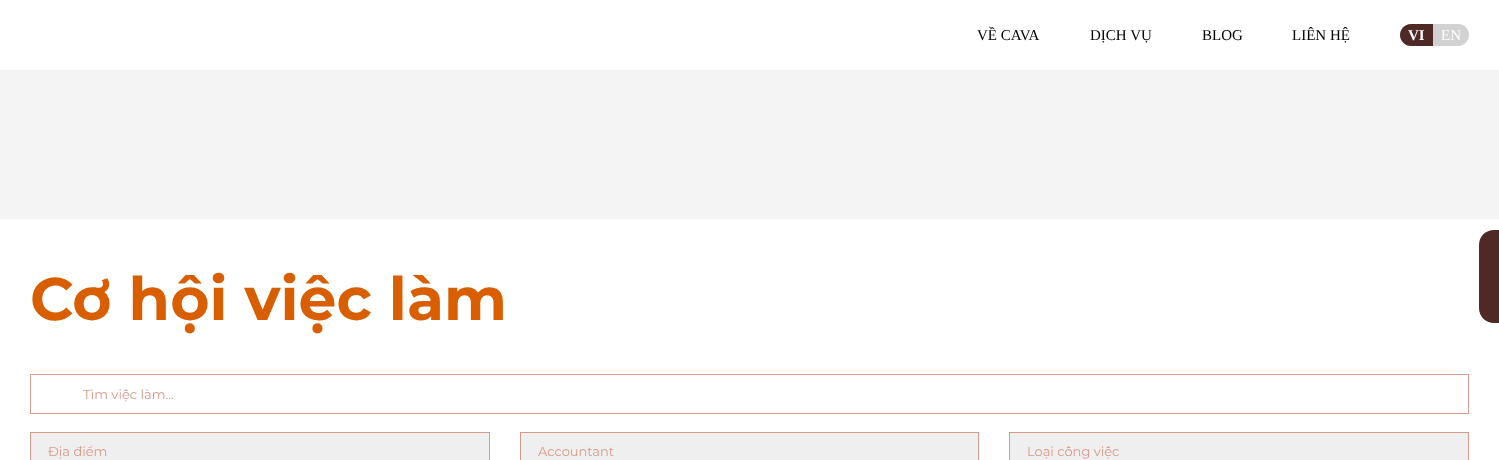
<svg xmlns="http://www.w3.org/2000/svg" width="1499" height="460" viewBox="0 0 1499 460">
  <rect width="100%" height="100%" fill="rgb(244,244,244)"/>
  <rect x="0" y="0" width="1499" height="70" fill="rgb(255,255,255)"/>
  <g font-family="Liberation Serif" font-size="15" fill="rgb(0,0,0)">
    <text x="977" y="40">VỀ CAVA</text>
    <text x="1090" y="40">DỊCH VỤ</text>
    <text x="1202" y="40">BLOG</text>
    <text x="1292" y="40">LIÊN HỆ</text>
  </g>
  <rect x="1400" y="24" width="69" height="22" rx="11" fill="rgb(210,210,210)"/>
  <path d="M1411 24H1433V46H1411C1405 46 1400 41 1400 35C1400 29 1405 24 1411 24Z" fill="rgb(78,41,38)"/>
  <text x="1408" y="40" font-family="Liberation Serif" font-size="15" font-weight="bold" fill="rgb(255,255,255)">VI</text>
  <text x="1441" y="40" font-family="Liberation Serif" font-size="15" fill="rgb(255,255,255)">EN</text>
  <rect x="0" y="219" width="1499" height="241" fill="rgb(255,255,255)"/>
  <text x="30" y="320" font-family="Montserrat" font-size="60" font-weight="bold" fill="rgb(216,94,0)">Cơ hội việc làm</text>
  <rect x="30.5" y="374.5" width="1438" height="39" fill="none" stroke="rgb(216,154,137)"/>
  <text x="83" y="399" font-family="Montserrat" font-size="13" fill="rgb(216,154,137)">Tìm việc làm...</text>
  <rect x="30.5" y="432.5" width="459" height="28" fill="rgb(239,239,239)" stroke="rgb(216,154,137)"/>
  <text x="48" y="456" font-family="Montserrat" font-size="13" fill="rgb(216,154,137)">Địa điểm</text>
  <rect x="520.5" y="432.5" width="458" height="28" fill="rgb(239,239,239)" stroke="rgb(216,154,137)"/>
  <text x="538" y="456" font-family="Montserrat" font-size="13" fill="rgb(216,154,137)">Accountant</text>
  <rect x="1009.5" y="432.5" width="459" height="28" fill="rgb(239,239,239)" stroke="rgb(216,154,137)"/>
  <text x="1027" y="456" font-family="Montserrat" font-size="13" fill="rgb(216,154,137)">Loại công việc</text>
  <path d="M1494 230H1499V323H1494C1485.5 323 1479 316.5 1479 308V245C1479 236.5 1485.5 230 1494 230Z" fill="rgb(78,41,38)"/>
</svg>
